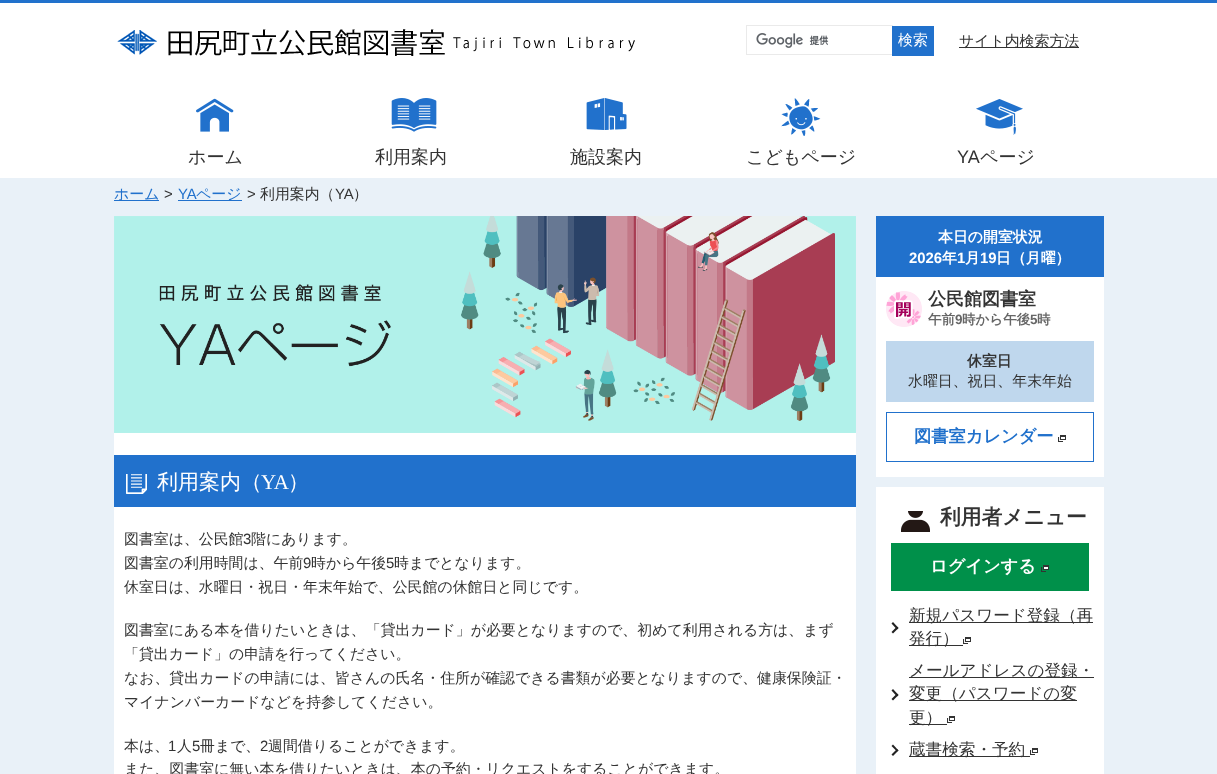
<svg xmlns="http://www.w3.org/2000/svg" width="1217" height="774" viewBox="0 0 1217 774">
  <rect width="100%" height="100%" fill="rgb(255,255,255)"/>
  <rect x="0" y="0" width="1217" height="3" fill="rgb(33,113,204)"/>
  <image x="117" y="29" width="518" height="27" href="pic1.png"/>
  <image x="756" y="33" width="73" height="15" href="pic2.png"/>
  <rect x="746.5" y="25.5" width="146" height="29" fill="none" stroke="rgb(234,234,234)"/>
  <rect x="892" y="26" width="42" height="30" fill="rgb(33,113,204)"/>
  <text x="898" y="45" font-family="WenQuanYi Zen Hei" font-size="14.9" font-weight="500" fill="rgb(255,255,255)">検索</text>
  <rect x="959" y="47" width="120" height="1" fill="rgb(51,51,51)"/>
  <text x="959" y="46" font-family="WenQuanYi Zen Hei" font-size="14.9" font-weight="500" fill="rgb(51,51,51)">サイト内検索方法</text>
  <image x="196" y="98" width="38" height="34" href="pic3.png"/>
  <text x="188" y="163" font-family="WenQuanYi Zen Hei" font-size="18" font-weight="500" fill="rgb(51,51,51)">ホーム</text>
  <image x="391" y="98" width="46" height="34" href="pic4.png"/>
  <text x="375" y="163" font-family="WenQuanYi Zen Hei" font-size="18" font-weight="500" fill="rgb(51,51,51)">利用案内</text>
  <image x="586" y="98" width="41" height="32" href="pic5.png"/>
  <text x="570" y="163" font-family="WenQuanYi Zen Hei" font-size="18" font-weight="500" fill="rgb(51,51,51)">施設案内</text>
  <image x="781" y="98" width="40" height="38" href="pic6.png"/>
  <text x="746" y="163" font-family="WenQuanYi Zen Hei" font-size="18" font-weight="500" fill="rgb(51,51,51)">こどもページ</text>
  <image x="976" y="99" width="47" height="36" href="pic7.png"/>
  <text x="957" y="163" font-family="Liberation Sans" font-size="18" fill="rgb(51,51,51)">YA</text>
  <text x="980" y="163" font-family="WenQuanYi Zen Hei" font-size="18" font-weight="500" fill="rgb(51,51,51)">ページ</text>
  <rect x="0" y="178" width="1217" height="596" fill="rgb(233,241,248)"/>
  <rect x="114" y="200" width="45" height="1" fill="rgb(33,113,204)"/>
  <text x="114" y="199" font-family="WenQuanYi Zen Hei" font-size="14.9" font-weight="500" fill="rgb(33,113,204)">ホーム</text>
  <text x="164" y="199" font-family="Liberation Sans" font-size="14.9" fill="rgb(51,51,51)">&gt;</text>
  <text x="178" y="199" font-family="Liberation Sans" font-size="14.9" fill="rgb(33,113,204)">YA</text>
  <rect x="178" y="200" width="64" height="1" fill="rgb(33,113,204)"/>
  <text x="196" y="199" font-family="WenQuanYi Zen Hei" font-size="14.9" font-weight="500" fill="rgb(33,113,204)">ページ</text>
  <text x="247" y="199" font-family="Liberation Sans" font-size="14.9" fill="rgb(51,51,51)">&gt;</text>
  <text x="260" y="199" font-family="WenQuanYi Zen Hei" font-size="14.9" font-weight="500" fill="rgb(51,51,51)">利用案内（</text>
  <text x="335" y="199" font-family="Liberation Sans" font-size="14.9" fill="rgb(51,51,51)">YA</text>
  <text x="353" y="199" font-family="WenQuanYi Zen Hei" font-size="14.9" font-weight="500" fill="rgb(51,51,51)">）</text>
  <rect x="114" y="433" width="742" height="341" fill="rgb(255,255,255)"/>
  <image x="114" y="216" width="742" height="217" href="pic8.png"/>
  <rect x="114" y="455" width="742" height="52" fill="rgb(33,113,204)"/>
  <image x="126" y="474" width="21" height="20" href="pic9.png"/>
  <text x="157" y="489" font-family="WenQuanYi Zen Hei" font-size="21" font-weight="500" fill="rgb(255,255,255)">利用案内（</text>
  <text x="261" y="489" font-family="Liberation Serif" font-size="21" fill="rgb(255,255,255)">YA</text>
  <text x="288" y="489" font-family="WenQuanYi Zen Hei" font-size="21" font-weight="500" fill="rgb(255,255,255)">）</text>
  <text x="124" y="544" font-family="WenQuanYi Zen Hei" font-size="14.9" font-weight="500" fill="rgb(51,51,51)">図書室は、公民館</text>
  <text x="243" y="544" font-family="Liberation Sans" font-size="14.9" fill="rgb(51,51,51)">3</text>
  <g font-family="WenQuanYi Zen Hei" font-size="14.9" font-weight="500" fill="rgb(51,51,51)">
    <text x="251" y="544">階にあります。</text>
    <text x="124" y="568">図書室の利用時間は、午前</text>
  </g>
  <text x="303" y="568" font-family="Liberation Sans" font-size="14.9" fill="rgb(51,51,51)">9</text>
  <text x="311" y="568" font-family="WenQuanYi Zen Hei" font-size="14.9" font-weight="500" fill="rgb(51,51,51)">時から午後</text>
  <text x="386" y="568" font-family="Liberation Sans" font-size="14.9" fill="rgb(51,51,51)">5</text>
  <g font-family="WenQuanYi Zen Hei" font-size="14.9" font-weight="500" fill="rgb(51,51,51)">
    <text x="394" y="568">時までとなります。</text>
    <text x="124" y="592">休室日は、水曜日・祝日・年末年始で、公民館の休館日と同じです。</text>
    <text>
      <tspan x="124" y="635">図書室にある本を借りたいときは、「貸出カード」が必要となりますので、初めて利用される方は、まず</tspan>
      <tspan x="124" y="659">「貸出カード」の申請を行ってください。</tspan>
      <tspan x="124" y="683">なお、貸出カードの申請には、皆さんの氏名・住所が確認できる書類が必要となりますので、健康保険証・</tspan>
      <tspan x="124" y="707">マイナンバーカードなどを持参してください。</tspan>
    </text>
    <text x="124" y="751">本は、</text>
  </g>
  <text x="168" y="751" font-family="Liberation Sans" font-size="14.9" fill="rgb(51,51,51)">1</text>
  <text x="177" y="751" font-family="WenQuanYi Zen Hei" font-size="14.9" font-weight="500" fill="rgb(51,51,51)">人</text>
  <text x="192" y="751" font-family="Liberation Sans" font-size="14.9" fill="rgb(51,51,51)">5</text>
  <text x="200" y="751" font-family="WenQuanYi Zen Hei" font-size="14.9" font-weight="500" fill="rgb(51,51,51)">冊まで、</text>
  <text x="260" y="751" font-family="Liberation Sans" font-size="14.9" fill="rgb(51,51,51)">2</text>
  <g font-family="WenQuanYi Zen Hei" font-size="14.9" font-weight="500" fill="rgb(51,51,51)">
    <text x="268" y="751">週間借りることができます。</text>
    <text x="124" y="774">また、図書室に無い本を借りたいときは、本の予約・リクエストをすることができます。</text>
  </g>
  <rect x="876" y="277" width="228" height="200" fill="rgb(255,255,255)"/>
  <rect x="876" y="216" width="228" height="61" fill="rgb(33,113,204)"/>
  <text x="938" y="242" font-family="WenQuanYi Zen Hei" font-size="14.9" font-weight="bold" fill="rgb(255,255,255)">本日の開室状況</text>
  <text x="909" y="263" font-family="Liberation Sans" font-size="14.9" font-weight="bold" fill="rgb(255,255,255)">2026</text>
  <text x="942" y="263" font-family="WenQuanYi Zen Hei" font-size="14.9" font-weight="bold" fill="rgb(255,255,255)">年</text>
  <text x="957" y="263" font-family="Liberation Sans" font-size="14.9" font-weight="bold" fill="rgb(255,255,255)">1</text>
  <text x="965" y="263" font-family="WenQuanYi Zen Hei" font-size="14.9" font-weight="bold" fill="rgb(255,255,255)">月</text>
  <text x="980" y="263" font-family="Liberation Sans" font-size="14.9" font-weight="bold" fill="rgb(255,255,255)">19</text>
  <text x="996" y="263" font-family="WenQuanYi Zen Hei" font-size="14.9" font-weight="bold" fill="rgb(255,255,255)">日（月曜）</text>
  <image x="886" y="291" width="36" height="36" href="pic10.png"/>
  <text x="928" y="305" font-family="WenQuanYi Zen Hei" font-size="18" font-weight="bold" fill="rgb(51,51,51)">公民館図書室</text>
  <text x="928" y="324" font-family="WenQuanYi Zen Hei" font-size="13.5" font-weight="bold" fill="rgb(102,102,102)">午前</text>
  <text x="955" y="324" font-family="Liberation Sans" font-size="13.5" font-weight="bold" fill="rgb(102,102,102)">9</text>
  <text x="962" y="324" font-family="WenQuanYi Zen Hei" font-size="13.5" font-weight="bold" fill="rgb(102,102,102)">時から午後</text>
  <text x="1030" y="324" font-family="Liberation Sans" font-size="13.5" font-weight="bold" fill="rgb(102,102,102)">5</text>
  <text x="1037" y="324" font-family="WenQuanYi Zen Hei" font-size="13.5" font-weight="bold" fill="rgb(102,102,102)">時</text>
  <rect x="886" y="341" width="208" height="61" fill="rgb(191,215,237)"/>
  <text x="967" y="366" font-family="WenQuanYi Zen Hei" font-size="14.9" font-weight="bold" fill="rgb(51,51,51)">休室日</text>
  <text x="908" y="386" font-family="WenQuanYi Zen Hei" font-size="14.9" font-weight="500" fill="rgb(51,51,51)">水曜日、祝日、年末年始</text>
  <rect x="886.5" y="412.5" width="207" height="49" fill="none" stroke="rgb(33,113,204)"/>
  <text x="914" y="442" font-family="WenQuanYi Zen Hei" font-size="17.25" font-weight="bold" fill="rgb(33,113,204)">図書室カレンダー</text>
  <image x="1058" y="435" width="8" height="7" href="pic11.png"/>
  <rect x="876" y="487" width="228" height="287" fill="rgb(255,255,255)"/>
  <image x="901" y="511" width="29" height="21" href="pic12.png"/>
  <text x="940" y="524" font-family="WenQuanYi Zen Hei" font-size="20.75" font-weight="bold" fill="rgb(51,51,51)">利用者メニュー</text>
  <rect x="891" y="543" width="198" height="48" fill="rgb(0,144,74)"/>
  <text x="930" y="572" font-family="WenQuanYi Zen Hei" font-size="17.25" font-weight="bold" fill="rgb(255,255,255)">ログインする</text>
  <image x="1041" y="565" width="8" height="7" href="pic13.png"/>
  <rect x="909" y="622" width="184" height="1" fill="rgb(51,51,51)"/>
  <text x="909" y="621" font-family="WenQuanYi Zen Hei" font-size="16.6" font-weight="500" fill="rgb(51,51,51)">新規パスワード登録（再</text>
  <path d="M893 622L898.5 628L897 629.5L891.5 623.5Z" fill="rgb(34,34,34)"/>
  <path d="M897 626.5L898.5 628L893 633.5L891.5 632Z" fill="rgb(34,34,34)"/>
  <rect x="909" y="645" width="54" height="1" fill="rgb(51,51,51)"/>
  <text x="909" y="644" font-family="WenQuanYi Zen Hei" font-size="16.6" font-weight="500" fill="rgb(51,51,51)">発行）</text>
  <image x="963" y="637" width="8" height="7" href="pic11.png"/>
  <rect x="909" y="677" width="185" height="1" fill="rgb(51,51,51)"/>
  <text x="909" y="676" font-family="WenQuanYi Zen Hei" font-size="16.6" font-weight="500" fill="rgb(51,51,51)">メールアドレスの登録・</text>
  <path d="M893 689L898.5 695L897 696.5L891.5 690.5Z" fill="rgb(34,34,34)"/>
  <path d="M897 693.5L898.5 695L893 700.5L891.5 699Z" fill="rgb(34,34,34)"/>
  <rect x="909" y="700" width="168" height="1" fill="rgb(51,51,51)"/>
  <text x="909" y="699" font-family="WenQuanYi Zen Hei" font-size="16.6" font-weight="500" fill="rgb(51,51,51)">変更（パスワードの変</text>
  <rect x="909" y="724" width="38" height="1" fill="rgb(51,51,51)"/>
  <text x="909" y="723" font-family="WenQuanYi Zen Hei" font-size="16.6" font-weight="500" fill="rgb(51,51,51)">更）</text>
  <image x="947" y="716" width="8" height="7" href="pic11.png"/>
  <path d="M893 744.5L898.5 750.5L897 751.5L891.5 746Z" fill="rgb(34,34,34)"/>
  <path d="M897 749L898.5 750.5L893 756L891.5 754.5Z" fill="rgb(34,34,34)"/>
  <rect x="909" y="756" width="121" height="1" fill="rgb(51,51,51)"/>
  <text x="909" y="755" font-family="WenQuanYi Zen Hei" font-size="16.6" font-weight="500" fill="rgb(51,51,51)">蔵書検索・予約</text>
  <image x="1030" y="748" width="8" height="7" href="pic11.png"/>
</svg>
